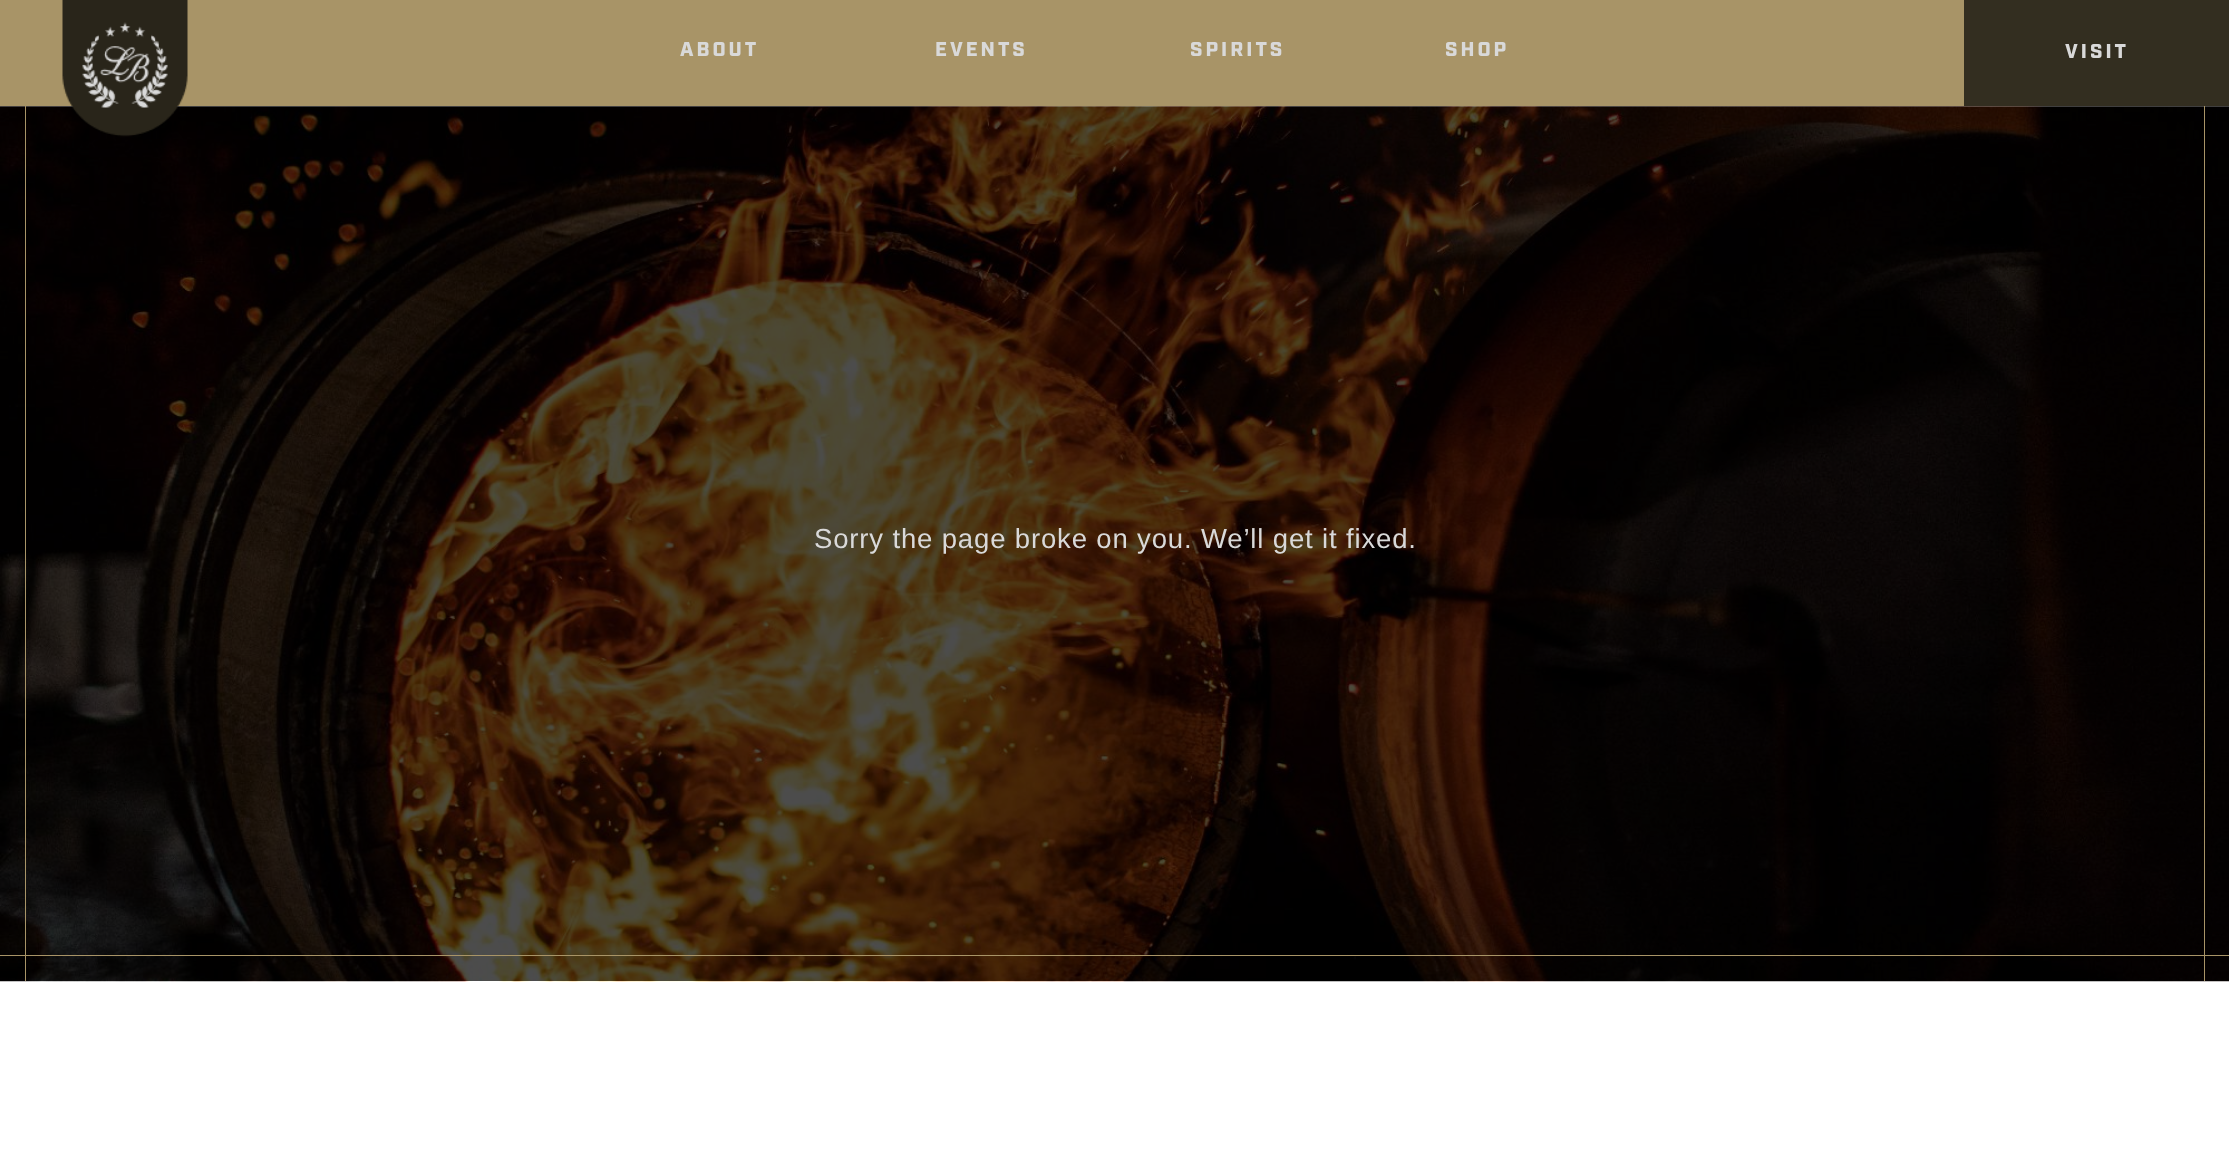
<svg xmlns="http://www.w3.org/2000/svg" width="2229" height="1154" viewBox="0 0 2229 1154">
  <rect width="100%" height="100%" fill="rgb(255,255,255)"/>
  <rect x="0" y="0" width="1964" height="106" fill="rgb(168,148,103)"/>
  <image x="0" y="106" width="2229" height="876" href="pic2.png"/>
  <image x="62" y="0" width="126" height="137" href="pic1.png"/>
  <g font-family="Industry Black" font-size="20" font-weight="900" letter-spacing="3" fill="rgb(217,217,217)">
    <text x="680" y="56">ABOUT</text>
    <text x="935" y="56">EVENTS</text>
    <text x="1190" y="56">SPIRITS</text>
    <text x="1445" y="56">SHOP</text>
  </g>
  <rect x="1964" y="0" width="265" height="106" fill="rgb(51,46,32)"/>
  <text x="2065" y="58" font-family="Industry Black" font-size="20" font-weight="900" letter-spacing="3" fill="rgb(217,217,217)">VISIT</text>
  <rect x="2204" y="106" width="1" height="875" fill="rgb(168,148,103)"/>
  <rect x="25" y="106" width="1" height="875" fill="rgb(168,148,103)"/>
  <text x="814" y="548" font-family="Liberation Sans" font-size="27.5" letter-spacing="0.85" fill="rgb(217,217,217)">Sorry the page broke on you. We’ll get it fixed.</text>
  <rect x="0" y="955" width="2229" height="1" fill="rgb(168,148,103)"/>
</svg>
